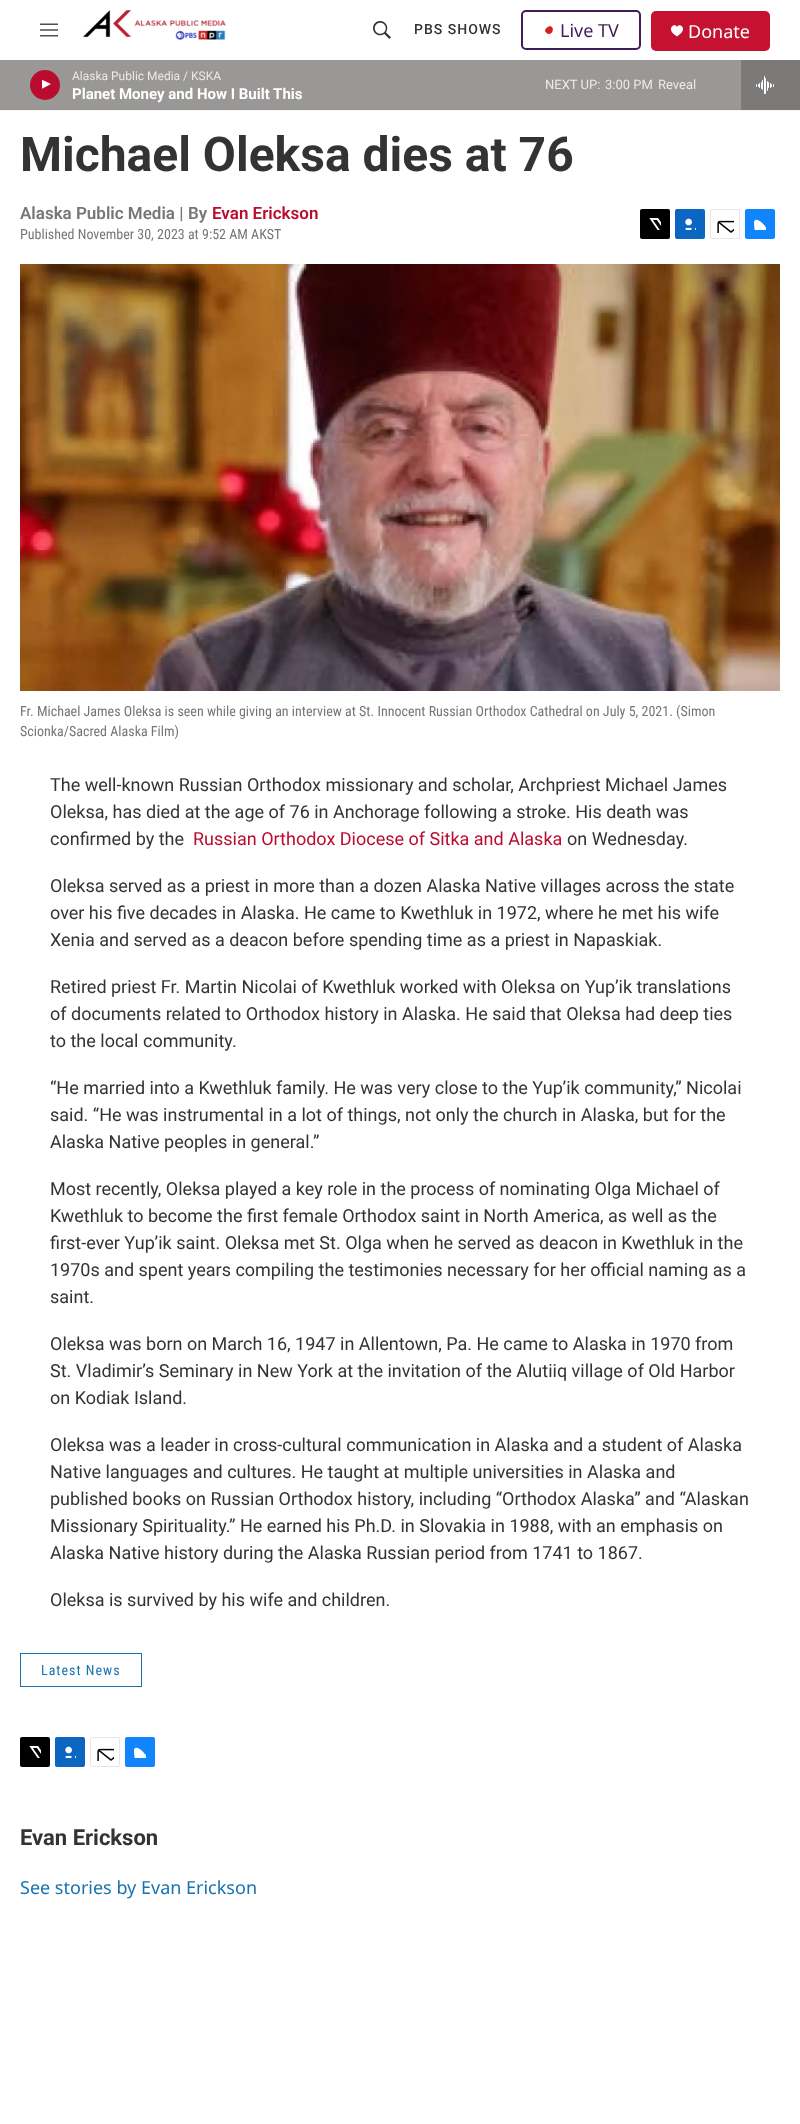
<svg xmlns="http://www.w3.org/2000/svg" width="800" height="2124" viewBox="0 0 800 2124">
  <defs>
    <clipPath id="clip1"><rect x="42" y="78" width="12" height="15"/></clipPath>
  </defs>
  <rect width="100%" height="100%" fill="rgb(255,255,255)"/>
  <rect x="0" y="110" width="800" height="1" fill="rgb(245,245,245)"/>
  <image x="40" y="23" width="18" height="14" href="pic1.png"/>
  <image x="83" y="10" width="143" height="30" href="pic2.png"/>
  <image x="373" y="21" width="18" height="18" href="pic3.png"/>
  <text x="414" y="34" font-family="Roboto" font-size="14" font-weight="500" letter-spacing="1" fill="rgb(51,51,51)">PBS SHOWS</text>
  <rect x="522" y="11" width="118" height="38" rx="4" fill="none" stroke="rgb(65,28,88)" stroke-width="2"/>
  <path d="M550 26C556 27.5 551.5 37 546.5 33C546 32.5 545 31.5 545 31C545 28.5 548 26.5 550 26Z" fill="rgb(214,32,33)"/>
  <text x="560" y="37" font-family="Noto Sans" font-size="18" fill="rgb(65,28,88)">Live TV</text>
  <rect x="651" y="11" width="119" height="40" rx="5" fill="rgb(196,18,48)"/>
  <path d="M677 27C675 22 664.5 29 677 36.5C689.5 29 679 22 677 27Z" fill="rgb(255,255,255)"/>
  <text x="688" y="38" font-family="Noto Sans" font-size="18" fill="rgb(255,255,255)">Donate</text>
  <rect x="0" y="60" width="741" height="50" fill="rgb(154,152,150)"/>
  <circle cx="45" cy="85" r="15" fill="rgb(186,12,47)"/>
  <g clip-path="url(#clip1)">
    <path d="M41.5 79.5L51 84L41.5 89Z" fill="rgb(255,255,255)"/>
  </g>
  <text x="72" y="80" font-family="Roboto" font-size="12" fill="rgb(235,234,234)">Alaska Public Media / KSKA</text>
  <text x="72" y="99" font-family="'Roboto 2'" font-size="15" font-weight="bold" fill="rgb(255,255,255)">Planet Money and How I Built This</text>
  <g font-family="Roboto" font-size="13" fill="rgb(235,234,234)">
    <text x="545" y="89">NEXT UP:</text>
    <text x="605" y="89">3:00 PM</text>
    <text x="658" y="89">Reveal</text>
  </g>
  <rect x="741" y="60" width="59" height="50" fill="rgb(123,122,120)"/>
  <image x="756" y="76" width="18" height="18" href="pic4.png"/>
  <text x="20" y="171" font-family="Roboto" font-size="48" font-weight="bold" fill="rgb(51,51,51)">Michael Oleksa dies at 76</text>
  <g font-family="Roboto" font-size="17" font-weight="600" fill="rgb(118,118,118)">
    <text x="20" y="219">Alaska Public Media |</text>
    <text x="188" y="219">By</text>
  </g>
  <text x="212" y="219" font-family="Roboto" font-size="17" font-weight="600" fill="rgb(186,12,47)">Evan Erickson</text>
  <text x="20" y="239" font-family="Roboto Condensed" font-size="14" fill="rgb(118,118,118)">Published November 30, 2023 at 9:52 AM AKST</text>
  <rect x="640" y="209" width="30" height="30" rx="2" fill="rgb(0,0,0)"/>
  <image x="649" y="218" width="12" height="12" href="pic5.png"/>
  <rect x="675" y="209" width="30" height="30" rx="2" fill="rgb(10,102,193)"/>
  <image x="685" y="218" width="11" height="12" href="pic6.png"/>
  <rect x="710.5" y="209.5" width="29" height="29" rx="1.5" fill="none" stroke="rgb(230,230,230)"/>
  <image x="717" y="220" width="17" height="13" href="pic7.png"/>
  <rect x="745" y="209" width="30" height="30" rx="2" fill="rgb(17,133,254)"/>
  <image x="754" y="219" width="12" height="11" href="pic8.png"/>
  <image x="20" y="264" width="760" height="427" href="pic9.png"/>
  <g font-family="Roboto Condensed" font-size="14" fill="rgb(118,118,118)">
    <text>
      <tspan x="20" y="716">Fr. Michael James Oleksa is seen while giving an interview at St. Innocent Russian Orthodox Cathedral on July 5, 2021. (Simon</tspan>
      <tspan x="20" y="736">Scionka/Sacred Alaska Film)</tspan>
    </text>
  </g>
  <g font-family="Roboto" font-size="18" fill="rgb(51,51,51)">
    <text>
      <tspan x="50" y="791">The well-known Russian Orthodox missionary and scholar, Archpriest Michael James</tspan>
      <tspan x="50" y="818">Oleksa, has died at the age of 76 in Anchorage following a stroke. His death was</tspan>
      <tspan x="50" y="845">confirmed by the</tspan>
    </text>
  </g>
  <text x="193" y="845" font-family="Roboto" font-size="18" fill="rgb(186,12,47)">Russian Orthodox Diocese of Sitka and Alaska</text>
  <g font-family="Roboto" font-size="18" fill="rgb(51,51,51)">
    <text x="567" y="845">on Wednesday.</text>
    <text>
      <tspan x="50" y="892">Oleksa served as a priest in more than a dozen Alaska Native villages across the state</tspan>
      <tspan x="50" y="919">over his five decades in Alaska. He came to Kwethluk in 1972, where he met his wife</tspan>
      <tspan x="50" y="946">Xenia and served as a deacon before spending time as a priest in Napaskiak.</tspan>
    </text>
    <text>
      <tspan x="50" y="993">Retired priest Fr. Martin Nicolai of Kwethluk worked with Oleksa on Yup’ik translations</tspan>
      <tspan x="50" y="1020">of documents related to Orthodox history in Alaska. He said that Oleksa had deep ties</tspan>
      <tspan x="50" y="1047">to the local community.</tspan>
    </text>
    <text>
      <tspan x="50" y="1094">“He married into a Kwethluk family. He was very close to the Yup’ik community,” Nicolai</tspan>
      <tspan x="50" y="1121">said. “He was instrumental in a lot of things, not only the church in Alaska, but for the</tspan>
      <tspan x="50" y="1148">Alaska Native peoples in general.”</tspan>
    </text>
    <text>
      <tspan x="50" y="1195">Most recently, Oleksa played a key role in the process of nominating Olga Michael of</tspan>
      <tspan x="50" y="1222">Kwethluk to become the first female Orthodox saint in North America, as well as the</tspan>
      <tspan x="50" y="1249">first-ever Yup’ik saint. Oleksa met St. Olga when he served as deacon in Kwethluk in the</tspan>
      <tspan x="50" y="1276">1970s and spent years compiling the testimonies necessary for her official naming as a</tspan>
      <tspan x="50" y="1303">saint.</tspan>
    </text>
    <text>
      <tspan x="50" y="1350">Oleksa was born on March 16, 1947 in Allentown, Pa. He came to Alaska in 1970 from</tspan>
      <tspan x="50" y="1377">St. Vladimir’s Seminary in New York at the invitation of the Alutiiq village of Old Harbor</tspan>
      <tspan x="50" y="1404">on Kodiak Island.</tspan>
    </text>
    <text>
      <tspan x="50" y="1451">Oleksa was a leader in cross-cultural communication in Alaska and a student of Alaska</tspan>
      <tspan x="50" y="1478">Native languages and cultures. He taught at multiple universities in Alaska and</tspan>
      <tspan x="50" y="1505">published books on Russian Orthodox history, including “Orthodox Alaska” and “Alaskan</tspan>
      <tspan x="50" y="1532">Missionary Spirituality.” He earned his Ph.D. in Slovakia in 1988, with an emphasis on</tspan>
      <tspan x="50" y="1559">Alaska Native history during the Alaska Russian period from 1741 to 1867.</tspan>
    </text>
    <text x="50" y="1606">Oleksa is survived by his wife and children.</text>
  </g>
  <rect x="20.5" y="1653.5" width="121" height="33" fill="none" stroke="rgb(23,114,176)"/>
  <text x="41" y="1675" font-family="Roboto Condensed" font-size="14" letter-spacing="1" fill="rgb(23,114,176)">Latest News</text>
  <rect x="20" y="1737" width="30" height="30" rx="2" fill="rgb(0,0,0)"/>
  <image x="29" y="1746" width="12" height="12" href="pic5.png"/>
  <rect x="55" y="1737" width="30" height="30" rx="2" fill="rgb(10,102,193)"/>
  <image x="65" y="1746" width="11" height="12" href="pic6.png"/>
  <rect x="90.5" y="1737.5" width="29" height="29" rx="1.5" fill="none" stroke="rgb(230,230,230)"/>
  <image x="97" y="1748" width="17" height="13" href="pic7.png"/>
  <rect x="125" y="1737" width="30" height="30" rx="2" fill="rgb(17,133,254)"/>
  <image x="134" y="1747" width="12" height="11" href="pic8.png"/>
  <text x="20" y="1845" font-family="Roboto" font-size="22" font-weight="bold" fill="rgb(51,51,51)">Evan Erickson</text>
  <text x="20" y="1894" font-family="Noto Sans" font-size="18" fill="rgb(23,114,176)">See stories by Evan Erickson</text>
</svg>
